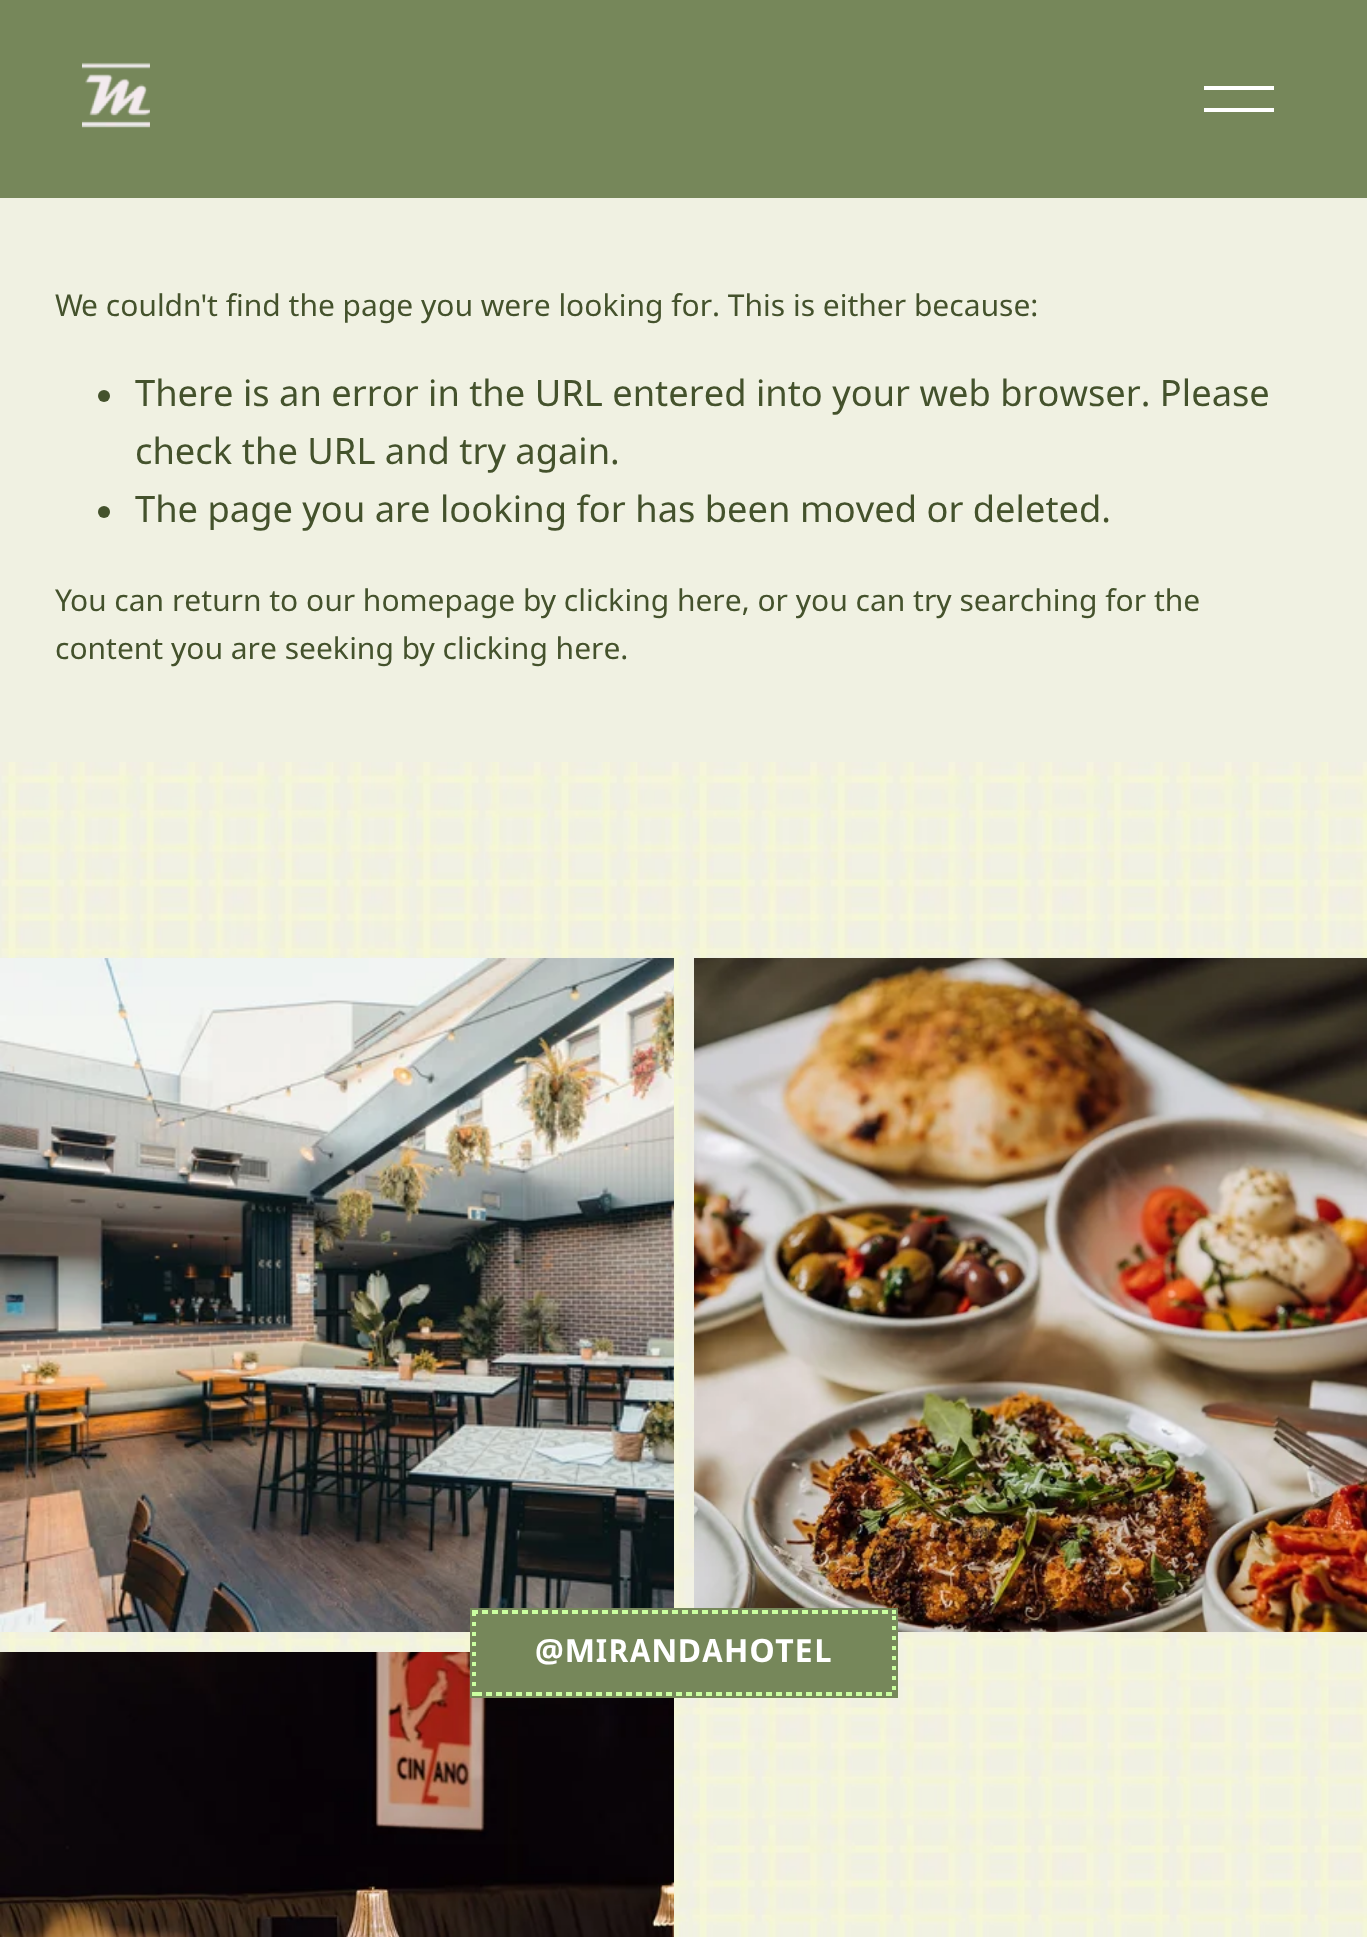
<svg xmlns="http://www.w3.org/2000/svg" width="1367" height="1937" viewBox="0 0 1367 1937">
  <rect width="100%" height="100%" fill="rgb(240,241,226)"/>
  <rect x="0" y="0" width="1367" height="198" fill="rgb(118,135,90)"/>
  <image x="82" y="62" width="68" height="66" href="pic1.png"/>
  <rect x="1204" y="86" width="70" height="4" fill="rgb(255,255,255)"/>
  <rect x="1204" y="108" width="70" height="4" fill="rgb(255,255,255)"/>
  <text x="55" y="316" font-family="Nokora" font-size="30" fill="rgb(68,82,44)">We couldn't find the page you were looking for. This is either because:</text>
  <circle cx="104" cy="396" r="6" fill="rgb(68,82,44)"/>
  <g font-family="Nokora" font-size="36.3" fill="rgb(68,82,44)">
    <text>
      <tspan x="135" y="406">There is an error in the URL entered into your web browser. Please</tspan>
      <tspan x="135" y="464">check the URL and try again.</tspan>
    </text>
  </g>
  <circle cx="104" cy="512" r="6" fill="rgb(68,82,44)"/>
  <text x="135" y="522" font-family="Nokora" font-size="36.3" fill="rgb(68,82,44)">The page you are looking for has been moved or deleted.</text>
  <g font-family="Nokora" font-size="30" fill="rgb(68,82,44)">
    <text>
      <tspan x="55" y="611">You can return to our homepage by clicking here, or you can try searching for the</tspan>
      <tspan x="55" y="659">content you are seeking by clicking here.</tspan>
    </text>
  </g>
  <image x="0" y="762" width="1367" height="1175" href="pic2.png"/>
  <image x="0" y="958" width="674" height="674" href="pic3.png"/>
  <image x="694" y="958" width="673" height="674" href="pic4.png"/>
  <image x="0" y="1652" width="674" height="285" href="pic5.png"/>
  <rect x="472" y="1610" width="424" height="86" fill="rgb(118,135,90)"/>
  <rect x="892" y="1616" width="4" height="4" fill="rgb(202,255,160)"/>
  <rect x="892" y="1626" width="4" height="4" fill="rgb(202,255,160)"/>
  <rect x="892" y="1636" width="4" height="4" fill="rgb(202,255,160)"/>
  <rect x="892" y="1646" width="4" height="4" fill="rgb(202,255,160)"/>
  <rect x="892" y="1656" width="4" height="4" fill="rgb(202,255,160)"/>
  <rect x="892" y="1666" width="4" height="4" fill="rgb(202,255,160)"/>
  <rect x="892" y="1676" width="4" height="4" fill="rgb(202,255,160)"/>
  <rect x="892" y="1686" width="4" height="4" fill="rgb(202,255,160)"/>
  <rect x="472" y="1614" width="4" height="2" fill="rgb(202,255,160)"/>
  <rect x="472" y="1622" width="4" height="4" fill="rgb(202,255,160)"/>
  <rect x="472" y="1632" width="4" height="4" fill="rgb(202,255,160)"/>
  <rect x="472" y="1642" width="4" height="4" fill="rgb(202,255,160)"/>
  <rect x="472" y="1652" width="4" height="4" fill="rgb(202,255,160)"/>
  <rect x="472" y="1662" width="4" height="4" fill="rgb(202,255,160)"/>
  <rect x="472" y="1672" width="4" height="4" fill="rgb(202,255,160)"/>
  <rect x="472" y="1682" width="4" height="4" fill="rgb(202,255,160)"/>
  <rect x="472" y="1692" width="4" height="4" fill="rgb(202,255,160)"/>
  <image x="476" y="1692" width="416" height="4" href="pic6.png"/>
  <image x="472" y="1610" width="424" height="4" href="pic7.png"/>
  <rect x="471" y="1609" width="426" height="88" fill="none" stroke="rgb(118,135,90)" stroke-width="2"/>
  <text x="535" y="1662" font-family="Nokora" font-size="32" font-weight="bold" letter-spacing="1.6" fill="rgb(255,255,255)">@MIRANDAHOTEL</text>
</svg>
